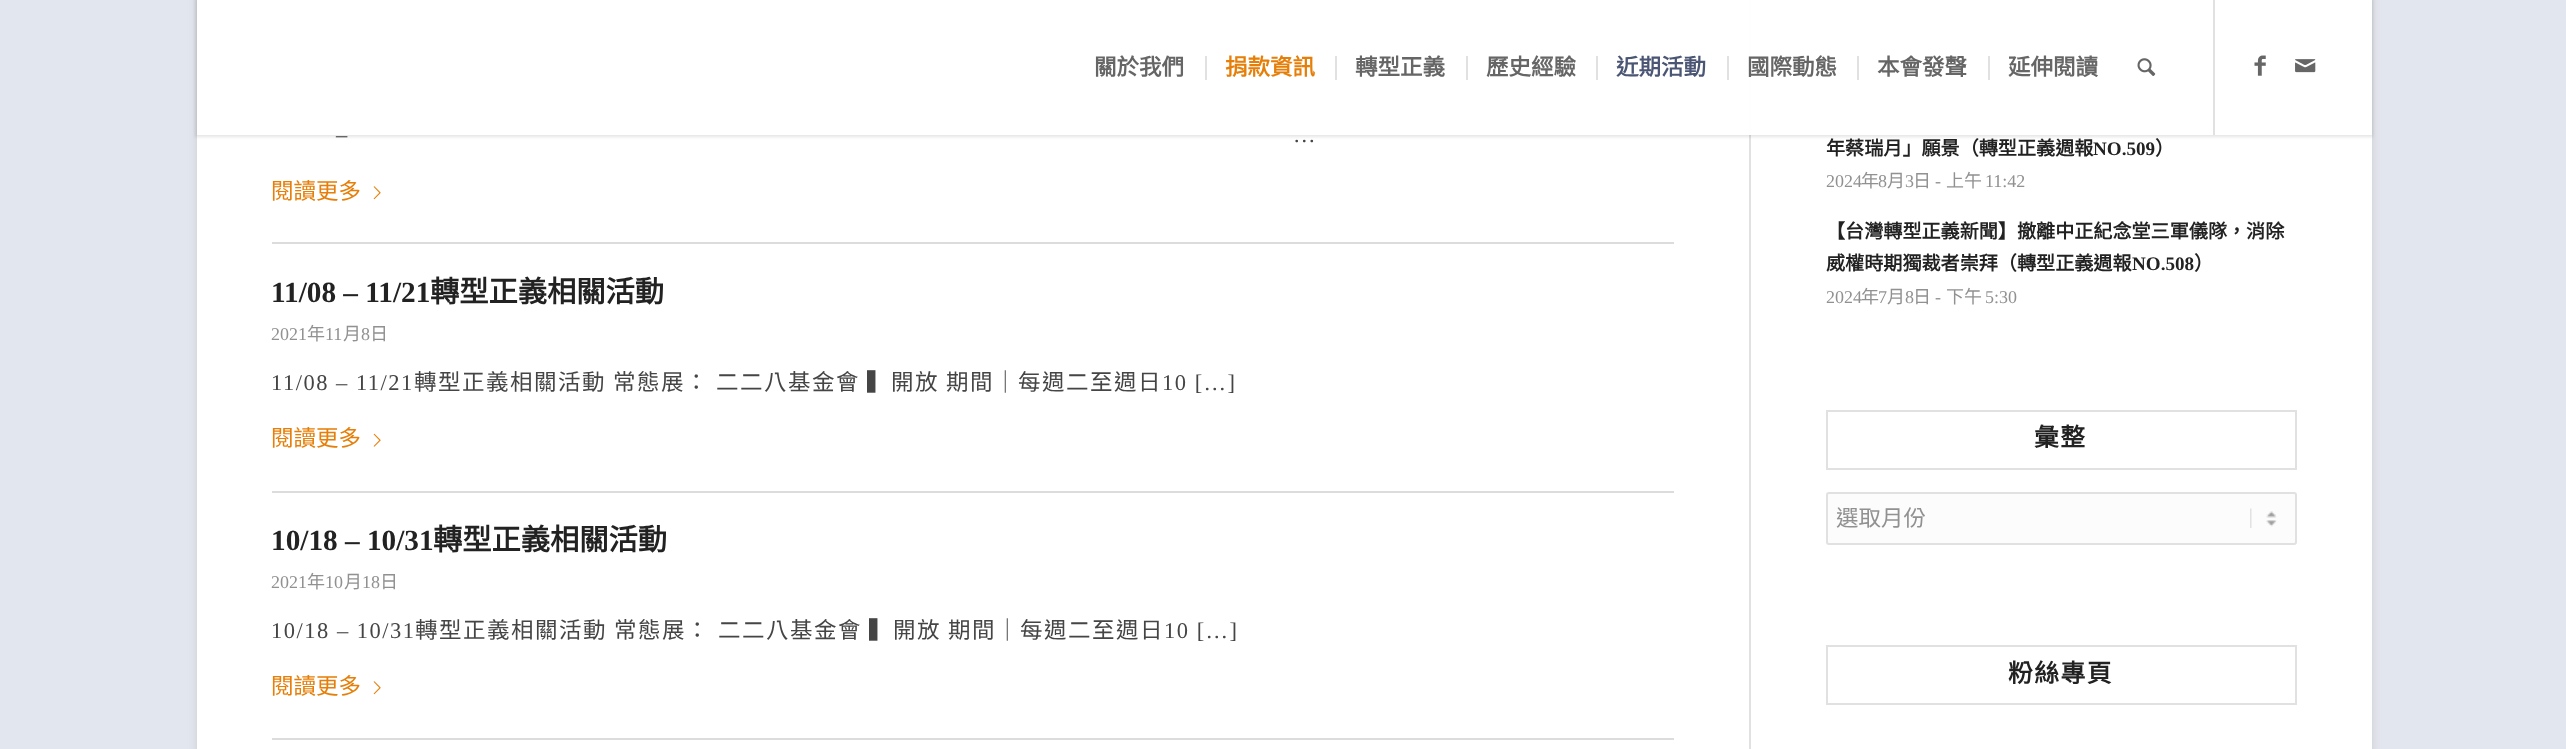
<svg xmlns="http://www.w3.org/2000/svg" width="2566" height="749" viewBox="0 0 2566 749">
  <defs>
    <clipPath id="clip1"><path d="M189 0H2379V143H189ZM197 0H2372V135H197Z" clip-rule="evenodd"/></clipPath>
  </defs>
  <rect width="100%" height="100%" fill="rgb(226,230,238)"/>
  <rect x="197" y="-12" width="2175" height="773" fill="rgb(204,204,204)" filter="blur(4px)"/>
  <rect x="197" y="0" width="2175" height="749" fill="rgb(255,255,255)"/>
  <rect x="1749" y="0" width="2" height="749" fill="rgb(225,225,225)"/>
  <g clip-path="url(#clip1)">
    <rect x="195" y="-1" width="2178" height="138" fill="rgba(0,0,0,0.1)" filter="blur(1.5px)"/>
  </g>
  <rect x="1749" y="0" width="623" height="135" fill="rgba(255,255,255,0.95)"/>
  <rect x="2213" y="0" width="2" height="135" fill="rgb(225,225,225)"/>
  <text x="1094" y="75" font-family="Noto Sans CJK TC" font-size="22.5" font-weight="bold" fill="rgb(102,102,102)">關於我們</text>
  <text x="1225" y="75" font-family="Noto Sans CJK TC" font-size="22.5" font-weight="bold" fill="rgb(230,127,9)">捐款資訊</text>
  <rect x="1205" y="56" width="2" height="24" fill="rgb(225,225,225)"/>
  <text x="1355" y="75" font-family="Noto Sans CJK TC" font-size="22.5" font-weight="bold" fill="rgb(102,102,102)">轉型正義</text>
  <rect x="1335" y="56" width="2" height="24" fill="rgb(225,225,225)"/>
  <text x="1486" y="75" font-family="Noto Sans CJK TC" font-size="22.5" font-weight="bold" fill="rgb(102,102,102)">歷史經驗</text>
  <rect x="1466" y="56" width="2" height="24" fill="rgb(225,225,225)"/>
  <text x="1616" y="75" font-family="Noto Sans CJK TC" font-size="22.5" font-weight="bold" fill="rgb(75,86,116)">近期活動</text>
  <rect x="1596" y="56" width="2" height="24" fill="rgb(225,225,225)"/>
  <text x="1747" y="75" font-family="Noto Sans CJK TC" font-size="22.5" font-weight="bold" fill="rgb(102,102,102)">國際動態</text>
  <rect x="1727" y="56" width="2" height="24" fill="rgb(225,225,225)"/>
  <text x="1877" y="75" font-family="Noto Sans CJK TC" font-size="22.5" font-weight="bold" fill="rgb(102,102,102)">本會發聲</text>
  <rect x="1857" y="56" width="2" height="24" fill="rgb(225,225,225)"/>
  <text x="2008" y="75" font-family="Noto Sans CJK TC" font-size="22.5" font-weight="bold" fill="rgb(102,102,102)">延伸閱讀</text>
  <rect x="1988" y="56" width="2" height="24" fill="rgb(225,225,225)"/>
  <image x="2137" y="58" width="19" height="18" href="pic1.png"/>
  <image x="2254" y="55" width="12" height="21" href="pic2.png"/>
  <image x="2295" y="59" width="21" height="14" href="pic3.png"/>
  <g font-family="Liberation Serif" font-size="22.5" letter-spacing="1.5" fill="rgb(69,69,69)">
    <text x="336" y="142">–</text>
    <text x="1293" y="142">…</text>
  </g>
  <text x="271" y="199" font-family="Noto Sans CJK TC" font-size="22.5" fill="rgb(230,127,9)">閱讀更多</text>
  <image x="373" y="186" width="8" height="14" href="pic4.png"/>
  <rect x="272" y="242" width="1402" height="2" fill="rgb(220,220,220)"/>
  <text x="271" y="302" font-family="Liberation Serif" font-size="29.25" font-weight="bold" fill="rgb(34,34,34)">11/08 – 11/21</text>
  <text x="430" y="302" font-family="Noto Sans CJK TC" font-size="29.25" font-weight="bold" fill="rgb(34,34,34)">轉型正義相關活動</text>
  <text x="271" y="340" font-family="Liberation Serif" font-size="18" fill="rgb(145,145,145)">2021</text>
  <text x="307" y="340" font-family="Noto Sans CJK TC" font-size="18" fill="rgb(145,145,145)">年</text>
  <text x="325" y="340" font-family="Liberation Serif" font-size="18" fill="rgb(145,145,145)">11</text>
  <text x="343" y="340" font-family="Noto Sans CJK TC" font-size="18" fill="rgb(145,145,145)">月</text>
  <text x="361" y="340" font-family="Liberation Serif" font-size="18" fill="rgb(145,145,145)">8</text>
  <text x="370" y="340" font-family="Noto Sans CJK TC" font-size="18" fill="rgb(145,145,145)">日</text>
  <text x="271" y="390" font-family="Liberation Serif" font-size="22.5" letter-spacing="1.5" fill="rgb(69,69,69)">11/08 – 11/21</text>
  <g font-family="Noto Sans CJK TC" font-size="22.5" letter-spacing="1.5" fill="rgb(69,69,69)">
    <text x="414" y="390">轉型正義相關活動</text>
    <text x="613" y="390">常態展：</text>
    <text x="716" y="390">二二八基金會</text>
    <text x="867" y="390">▍開放</text>
    <text x="946" y="390">期間｜每週二至週日</text>
  </g>
  <text x="1162" y="390" font-family="Liberation Serif" font-size="22.5" letter-spacing="1.5" fill="rgb(69,69,69)">10 […]</text>
  <text x="271" y="446" font-family="Noto Sans CJK TC" font-size="22.5" fill="rgb(230,127,9)">閱讀更多</text>
  <image x="373" y="433" width="8" height="14" href="pic5.png"/>
  <rect x="272" y="491" width="1402" height="2" fill="rgb(220,220,220)"/>
  <text x="271" y="550" font-family="Liberation Serif" font-size="29.25" font-weight="bold" fill="rgb(34,34,34)">10/18 – 10/31</text>
  <text x="433" y="550" font-family="Noto Sans CJK TC" font-size="29.25" font-weight="bold" fill="rgb(34,34,34)">轉型正義相關活動</text>
  <text x="271" y="588" font-family="Liberation Serif" font-size="18" fill="rgb(145,145,145)">2021</text>
  <text x="307" y="588" font-family="Noto Sans CJK TC" font-size="18" fill="rgb(145,145,145)">年</text>
  <text x="325" y="588" font-family="Liberation Serif" font-size="18" fill="rgb(145,145,145)">10</text>
  <text x="344" y="588" font-family="Noto Sans CJK TC" font-size="18" fill="rgb(145,145,145)">月</text>
  <text x="362" y="588" font-family="Liberation Serif" font-size="18" fill="rgb(145,145,145)">18</text>
  <text x="380" y="588" font-family="Noto Sans CJK TC" font-size="18" fill="rgb(145,145,145)">日</text>
  <text x="271" y="638" font-family="Liberation Serif" font-size="22.5" letter-spacing="1.5" fill="rgb(69,69,69)">10/18 – 10/31</text>
  <g font-family="Noto Sans CJK TC" font-size="22.5" letter-spacing="1.5" fill="rgb(69,69,69)">
    <text x="415" y="638">轉型正義相關活動</text>
    <text x="614" y="638">常態展：</text>
    <text x="718" y="638">二二八基金會</text>
    <text x="869" y="638">▍開放</text>
    <text x="948" y="638">期間｜每週二至週日</text>
  </g>
  <text x="1164" y="638" font-family="Liberation Serif" font-size="22.5" letter-spacing="1.5" fill="rgb(69,69,69)">10 […]</text>
  <text x="271" y="694" font-family="Noto Sans CJK TC" font-size="22.5" fill="rgb(230,127,9)">閱讀更多</text>
  <image x="373" y="681" width="8" height="14" href="pic4.png"/>
  <rect x="272" y="738" width="1402" height="2" fill="rgb(220,220,220)"/>
  <text x="1826" y="155" font-family="Noto Sans CJK TC" font-size="19.1" font-weight="bold" fill="rgb(34,34,34)">年蔡瑞月」願景（轉型正義週報</text>
  <text x="2093" y="155" font-family="Liberation Serif" font-size="19.1" font-weight="bold" fill="rgb(34,34,34)">NO.509</text>
  <text x="2155" y="155" font-family="Noto Sans CJK TC" font-size="19.1" font-weight="bold" fill="rgb(34,34,34)">）</text>
  <text x="1826" y="187" font-family="Liberation Serif" font-size="18" fill="rgb(145,145,145)">2024</text>
  <text x="1861" y="187" font-family="Noto Sans CJK TC" font-size="18" fill="rgb(145,145,145)">年</text>
  <text x="1878" y="187" font-family="Liberation Serif" font-size="18" fill="rgb(145,145,145)">8</text>
  <text x="1887" y="187" font-family="Noto Sans CJK TC" font-size="18" fill="rgb(145,145,145)">月</text>
  <text x="1905" y="187" font-family="Liberation Serif" font-size="18" fill="rgb(145,145,145)">3</text>
  <text x="1913" y="187" font-family="Noto Sans CJK TC" font-size="18" fill="rgb(145,145,145)">日</text>
  <text x="1935" y="187" font-family="Liberation Serif" font-size="18" fill="rgb(145,145,145)">-</text>
  <text x="1946" y="187" font-family="Noto Sans CJK TC" font-size="18" fill="rgb(145,145,145)">上午</text>
  <text x="1985" y="187" font-family="Liberation Serif" font-size="18" fill="rgb(145,145,145)">11:42</text>
  <g font-family="Noto Sans CJK TC" font-size="19.1" font-weight="bold" fill="rgb(34,34,34)">
    <text>
      <tspan x="1826" y="238">【台灣轉型正義新聞】撤離中正紀念堂三軍儀隊，消除</tspan>
      <tspan x="1826" y="270">威權時期獨裁者崇拜（轉型正義週報</tspan>
    </text>
  </g>
  <text x="2132" y="270" font-family="Liberation Serif" font-size="19.1" font-weight="bold" fill="rgb(34,34,34)">NO.508</text>
  <text x="2194" y="270" font-family="Noto Sans CJK TC" font-size="19.1" font-weight="bold" fill="rgb(34,34,34)">）</text>
  <text x="1826" y="303" font-family="Liberation Serif" font-size="18" fill="rgb(145,145,145)">2024</text>
  <text x="1861" y="303" font-family="Noto Sans CJK TC" font-size="18" fill="rgb(145,145,145)">年</text>
  <text x="1878" y="303" font-family="Liberation Serif" font-size="18" fill="rgb(145,145,145)">7</text>
  <text x="1887" y="303" font-family="Noto Sans CJK TC" font-size="18" fill="rgb(145,145,145)">月</text>
  <text x="1905" y="303" font-family="Liberation Serif" font-size="18" fill="rgb(145,145,145)">8</text>
  <text x="1913" y="303" font-family="Noto Sans CJK TC" font-size="18" fill="rgb(145,145,145)">日</text>
  <text x="1935" y="303" font-family="Liberation Serif" font-size="18" fill="rgb(145,145,145)">-</text>
  <text x="1946" y="303" font-family="Noto Sans CJK TC" font-size="18" fill="rgb(145,145,145)">下午</text>
  <text x="1985" y="303" font-family="Liberation Serif" font-size="18" fill="rgb(145,145,145)">5:30</text>
  <rect x="1827" y="411" width="469" height="58" fill="none" stroke="rgb(225,225,225)" stroke-width="2"/>
  <text x="2034" y="446" font-family="Noto Sans CJK TC" font-size="24.75" font-weight="bold" letter-spacing="1.5" fill="rgb(34,34,34)">彙整</text>
  <rect x="1826" y="492" width="471" height="53" rx="3" fill="rgb(252,252,252)"/>
  <image x="2250" y="508" width="27" height="20" href="pic6.png"/>
  <rect x="1827" y="493" width="469" height="51" rx="2" fill="none" stroke="rgb(225,225,225)" stroke-width="2"/>
  <text x="1836" y="526" font-family="Noto Sans CJK TC" font-size="22.5" fill="rgb(145,145,145)">選取月份</text>
  <rect x="1827" y="646" width="469" height="58" fill="none" stroke="rgb(225,225,225)" stroke-width="2"/>
  <text x="2008" y="682" font-family="Noto Sans CJK TC" font-size="24.75" font-weight="bold" letter-spacing="1.5" fill="rgb(34,34,34)">粉絲專頁</text>
</svg>
